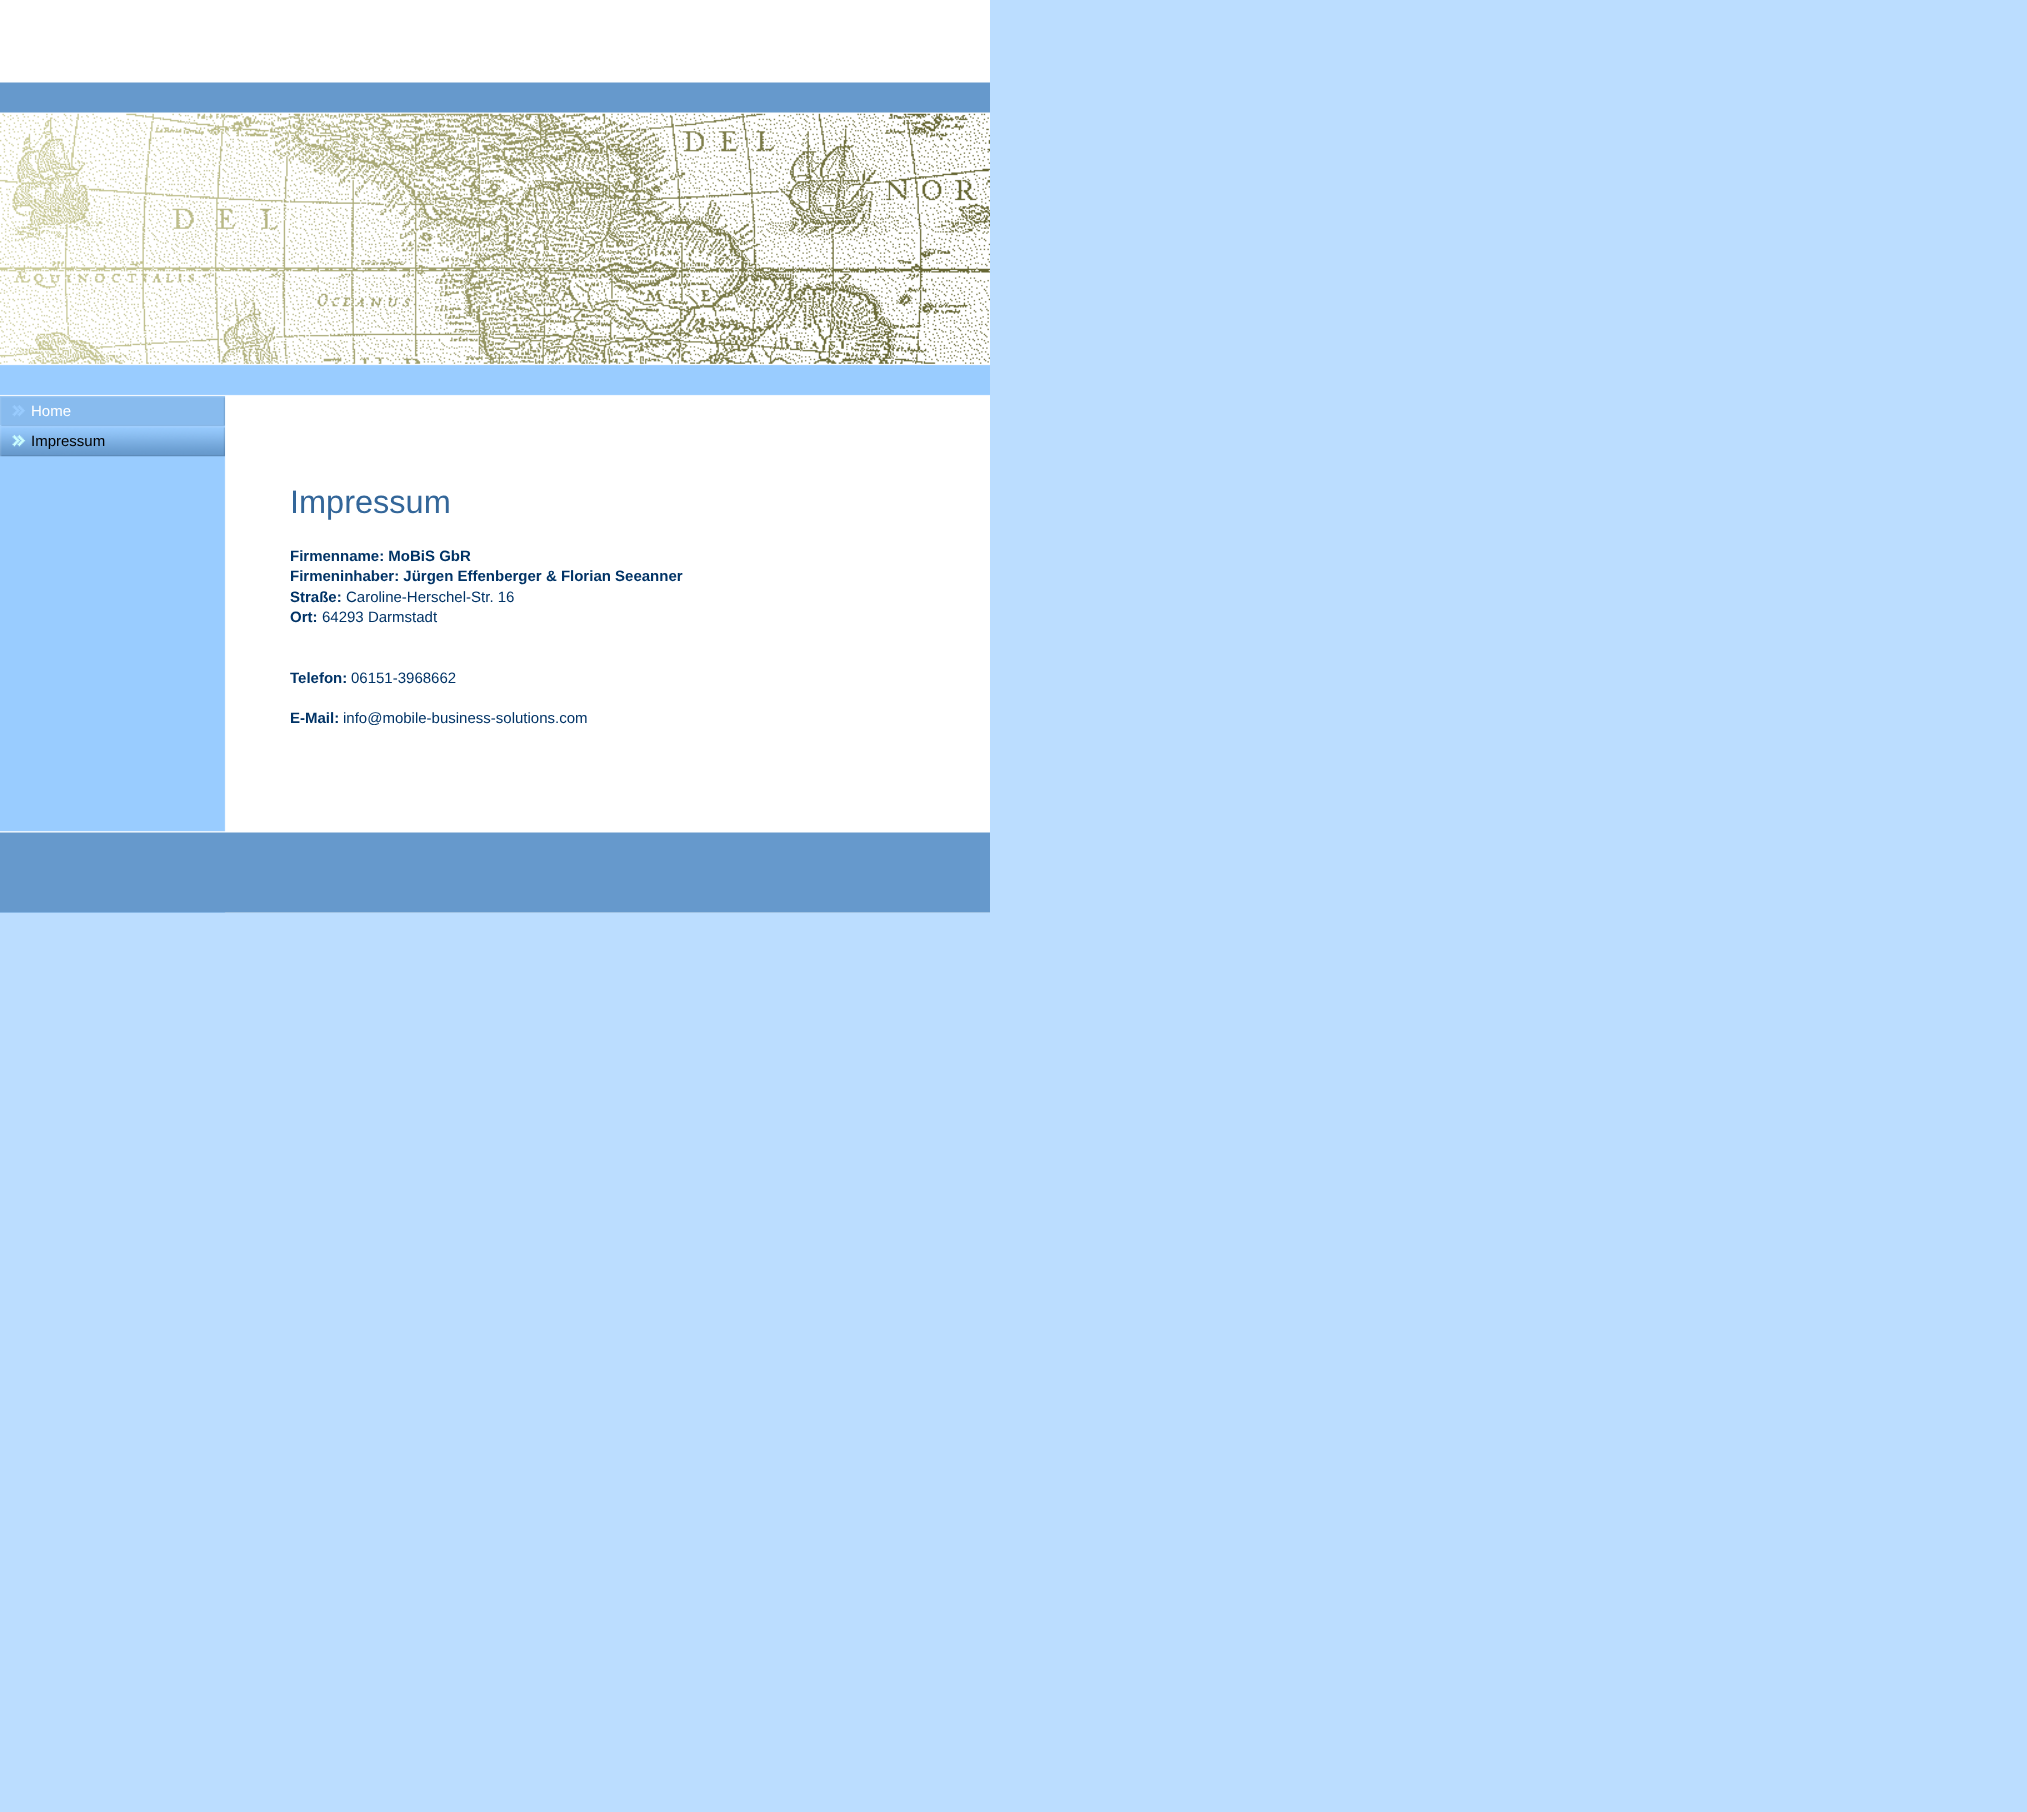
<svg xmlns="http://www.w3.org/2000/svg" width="2027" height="1812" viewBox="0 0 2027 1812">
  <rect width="100%" height="100%" fill="rgb(187,221,255)"/>
  <image x="0" y="396" width="990" height="517" href="pic1.png"/>
  <image x="0" y="0" width="990" height="397" href="pic2.png"/>
  <image x="0" y="113" width="990" height="251" href="pic3.png"/>
  <image x="0" y="396" width="225" height="31" href="pic4.png"/>
  <text x="31" y="416" font-family="Liberation Sans" font-size="15" fill="rgb(255,255,255)">Home</text>
  <image x="0" y="426" width="225" height="31" href="pic5.png"/>
  <text x="31" y="446" font-family="Liberation Sans" font-size="15" fill="rgb(0,0,0)">Impressum</text>
  <text x="290" y="513" font-family="Liberation Sans" font-size="32.5" fill="rgb(51,102,153)">Impressum</text>
  <g font-family="Liberation Sans" font-size="15" font-weight="bold" fill="rgb(0,51,102)">
    <text>
      <tspan x="290" y="561">Firmenname: MoBiS GbR</tspan>
      <tspan x="290" y="581">Firmeninhaber: Jürgen Effenberger &amp; Florian Seeanner</tspan>
      <tspan x="290" y="602">Straße:</tspan>
    </text>
  </g>
  <text x="346" y="602" font-family="Liberation Sans" font-size="15" fill="rgb(0,51,102)">Caroline-Herschel-Str. 16</text>
  <text x="290" y="622" font-family="Liberation Sans" font-size="15" font-weight="bold" fill="rgb(0,51,102)">Ort:</text>
  <text x="322" y="622" font-family="Liberation Sans" font-size="15" fill="rgb(0,51,102)">64293 Darmstadt</text>
  <text x="290" y="683" font-family="Liberation Sans" font-size="15" font-weight="bold" fill="rgb(0,51,102)">Telefon:</text>
  <text x="351" y="683" font-family="Liberation Sans" font-size="15" fill="rgb(0,51,102)">06151-3968662</text>
  <text x="290" y="723" font-family="Liberation Sans" font-size="15" font-weight="bold" fill="rgb(0,51,102)">E-Mail:</text>
  <text x="343" y="723" font-family="Liberation Sans" font-size="15" fill="rgb(0,51,102)">info@mobile-business-solutions.com</text>
  <image x="0" y="831" width="990" height="82" href="pic6.png"/>
</svg>
